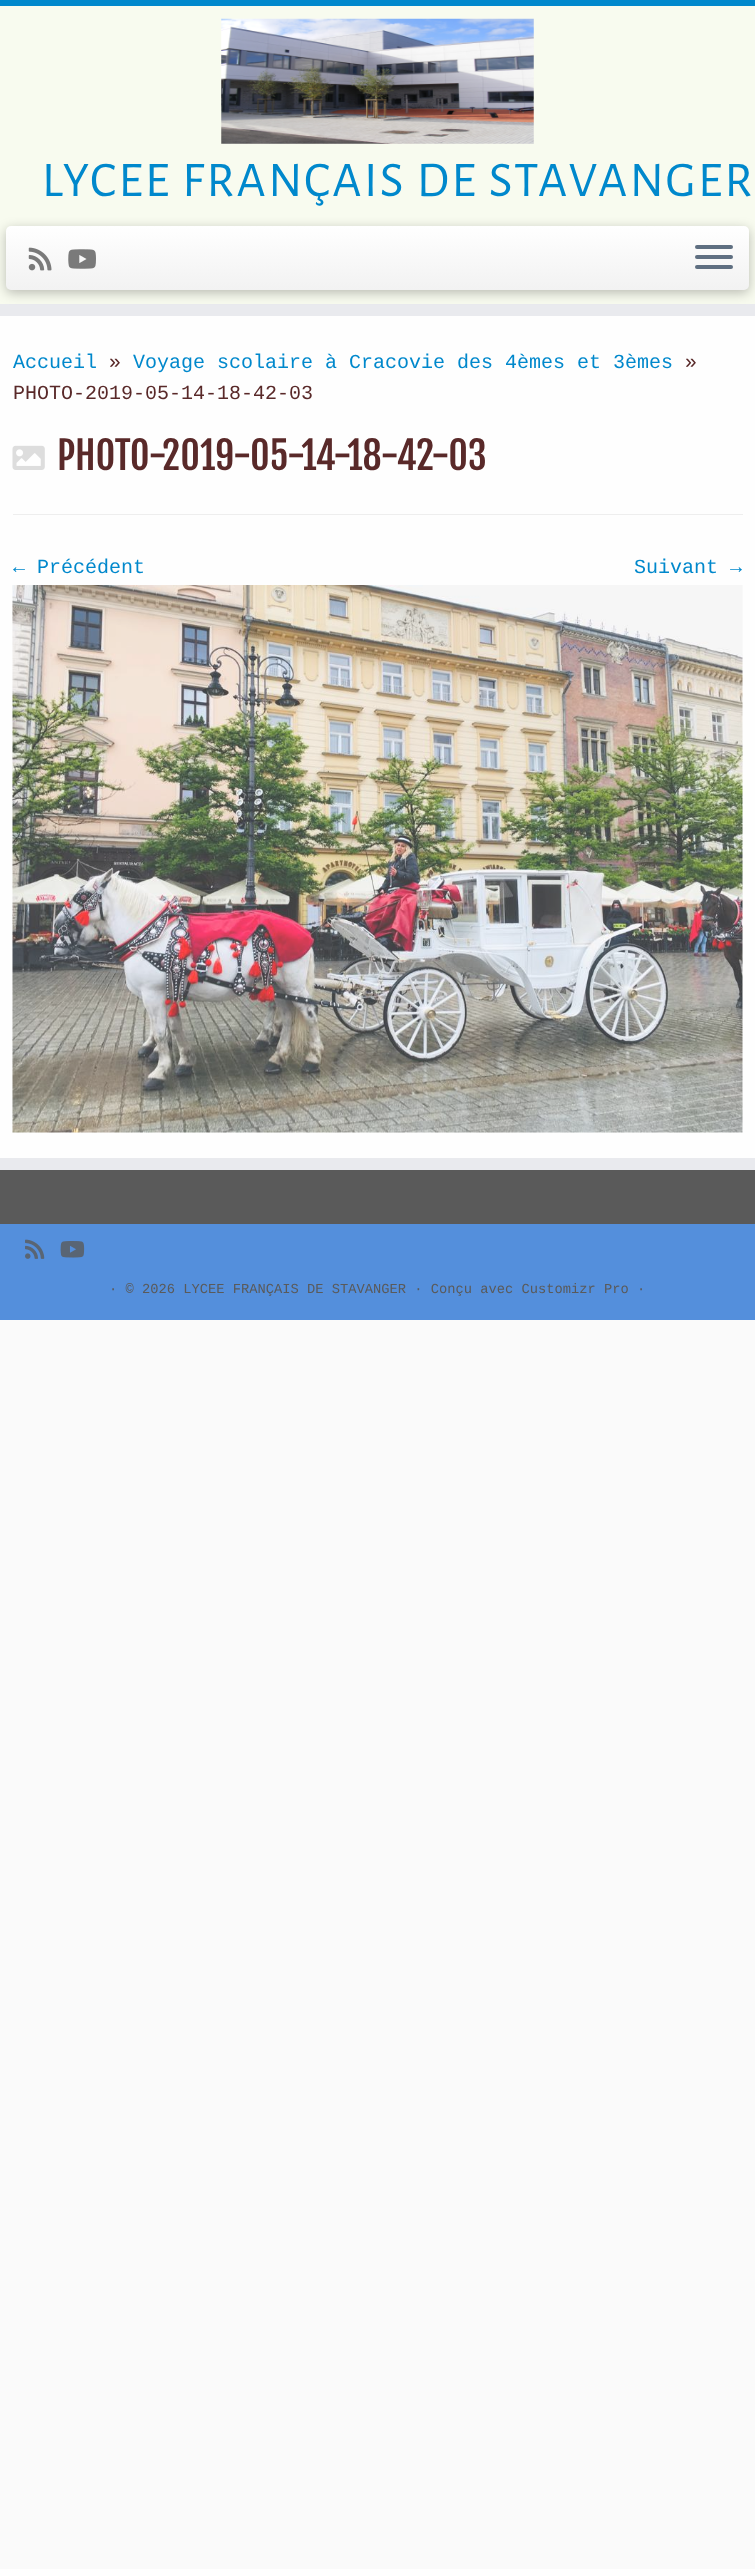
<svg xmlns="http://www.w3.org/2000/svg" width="755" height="2569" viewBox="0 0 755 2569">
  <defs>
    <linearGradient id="g1" gradientUnits="userSpaceOnUse" x1="378" y1="226" x2="378" y2="290"><stop offset="0" stop-color="rgb(255,255,255)"/><stop offset="1" stop-color="rgb(242,242,242)"/></linearGradient>
  </defs>
  <rect width="100%" height="100%" fill="rgb(250,250,250)"/>
  <rect x="0" y="316" width="755" height="842" fill="rgb(254,254,254)"/>
  <rect x="0" y="6" width="755" height="298" fill="rgb(248,251,239)"/>
  <rect x="0" y="0" width="755" height="6" fill="rgb(0,136,204)"/>
  <rect x="0" y="304" width="755" height="12" fill="rgb(233,234,238)"/>
  <image x="221" y="18" width="313" height="126" href="pic1.png"/>
  <text x="42" y="196" font-family="Alegreya Sans SC" font-size="50" letter-spacing="2.5" fill="rgb(0,136,204)">LYCEE FRANÇAIS DE STAVANGER</text>
  <rect x="6" y="229" width="743" height="64" rx="5" fill="rgba(0,0,0,0.25)" filter="blur(6px)"/>
  <rect x="6" y="226" width="743" height="64" rx="5" fill="url(#g1)"/>
  <image x="28" y="247" width="24" height="24" href="pic2.png"/>
  <image x="68" y="249" width="28" height="20" href="pic3.png"/>
  <rect x="695" y="245" width="38" height="4" rx="2" fill="rgb(95,111,129)"/>
  <rect x="695" y="255" width="38" height="4" rx="2" fill="rgb(95,111,129)"/>
  <rect x="695" y="265" width="38" height="4" rx="2" fill="rgb(95,111,129)"/>
  <text x="13" y="368" font-family="Liberation Mono" font-size="20" fill="rgb(0,136,204)">Accueil</text>
  <text x="109" y="368" font-family="Liberation Mono" font-size="20" fill="rgb(89,41,41)">»</text>
  <text x="133" y="368" font-family="Liberation Mono" font-size="20" fill="rgb(0,136,204)">Voyage scolaire à Cracovie des 4èmes et 3èmes</text>
  <g font-family="Liberation Mono" font-size="20" fill="rgb(89,41,41)">
    <text x="685" y="368">»</text>
    <text x="13" y="399">PHOTO-2019-05-14-18-42-03</text>
  </g>
  <image x="12" y="445" width="33" height="25" href="pic4.png"/>
  <text x="57" y="470" font-family="Fjalla One" font-size="38" fill="rgb(89,41,41)">PHOTO-2019-05-14-18-42-03</text>
  <rect x="13" y="514" width="730" height="1" fill="rgb(238,238,238)"/>
  <g font-family="Liberation Mono" font-size="20" fill="rgb(0,136,204)">
    <text x="13" y="573">← Précédent</text>
    <text x="634" y="573">Suivant →</text>
  </g>
  <image x="12" y="585" width="731" height="548" href="pic5.png"/>
  <rect x="0" y="1170" width="755" height="54" fill="rgb(90,90,90)"/>
  <rect x="0" y="1158" width="755" height="12" fill="rgb(233,234,238)"/>
  <rect x="0" y="1224" width="755" height="96" fill="rgb(84,143,220)"/>
  <image x="25" y="1239" width="20" height="20" href="pic6.png"/>
  <image x="60" y="1241" width="25" height="17" href="pic7.png"/>
  <text x="109" y="1293" font-family="Liberation Mono" font-size="13.75" fill="rgb(90,90,90)">· © 2026 LYCEE FRANÇAIS DE STAVANGER · Conçu avec Customizr Pro ·</text>
</svg>
